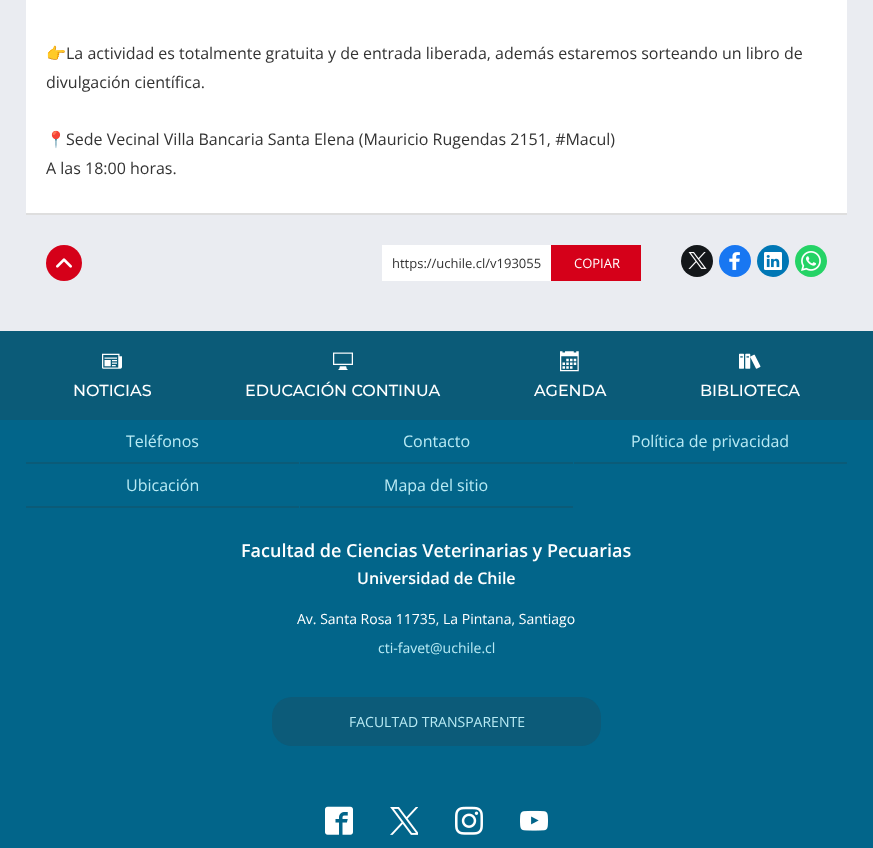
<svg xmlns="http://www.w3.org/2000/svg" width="873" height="848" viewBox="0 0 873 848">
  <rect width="100%" height="100%" fill="rgb(234,236,241)"/>
  <rect x="26" y="213" width="821" height="2" fill="rgb(222,222,222)"/>
  <rect x="26" y="0" width="821" height="213" fill="rgb(255,255,255)"/>
  <text x="46" y="59" font-family="Noto Color Emoji" font-size="16" fill="rgb(51,51,51)">👉</text>
  <g font-family="Open Sans" font-size="16" fill="rgb(51,51,51)">
    <text x="66" y="59">La actividad es totalmente gratuita y de entrada liberada, además estaremos sorteando un libro de</text>
    <text x="46" y="88">divulgación científica.</text>
  </g>
  <text x="46" y="145" font-family="Noto Color Emoji" font-size="16" fill="rgb(51,51,51)">📍</text>
  <g font-family="Open Sans" font-size="16" fill="rgb(51,51,51)">
    <text x="66" y="145">Sede Vecinal Villa Bancaria Santa Elena (Mauricio Rugendas 2151, #Macul)</text>
    <text x="46" y="174">A las 18:00 horas.</text>
  </g>
  <circle cx="64" cy="263" r="18" fill="rgb(213,0,25)"/>
  <image x="56" y="258" width="16" height="10" href="pic1.png"/>
  <rect x="382" y="245" width="169" height="36" fill="rgb(255,255,255)"/>
  <text x="392" y="268" font-family="Open Sans" font-size="13" fill="rgb(51,51,51)">https://uchile.cl/v193055</text>
  <rect x="551" y="245" width="90" height="36" fill="rgb(213,0,25)"/>
  <text x="574" y="268" font-family="Open Sans" font-size="13" fill="rgb(255,255,255)">COPIAR</text>
  <circle cx="697" cy="261" r="16" fill="rgb(20,23,26)"/>
  <image x="688" y="252" width="19" height="17" href="pic2.png"/>
  <circle cx="735" cy="261" r="16" fill="rgb(24,119,242)"/>
  <image x="729" y="252" width="11" height="18" href="pic3.png"/>
  <circle cx="773" cy="261" r="16" fill="rgb(0,119,181)"/>
  <image x="764" y="252" width="18" height="18" href="pic4.png"/>
  <circle cx="811" cy="261" r="16" fill="rgb(37,211,102)"/>
  <image x="801" y="251" width="20" height="20" href="pic5.png"/>
  <rect x="0" y="420" width="873" height="428" fill="rgb(2,101,138)"/>
  <rect x="0" y="331" width="873" height="89" fill="rgb(11,91,120)"/>
  <image x="102" y="353" width="20" height="16" href="pic6.png"/>
  <text x="73" y="396" font-family="Montserrat" font-size="16" font-weight="500" fill="rgb(255,255,255)">NOTICIAS</text>
  <image x="333" y="352" width="20" height="18" href="pic7.png"/>
  <text x="245" y="396" font-family="Montserrat" font-size="16" font-weight="500" fill="rgb(255,255,255)">EDUCACIÓN CONTINUA</text>
  <image x="560" y="351" width="19" height="21" href="pic8.png"/>
  <text x="534" y="396" font-family="Montserrat" font-size="16" font-weight="500" fill="rgb(255,255,255)">AGENDA</text>
  <image x="739" y="353" width="22" height="16" href="pic9.png"/>
  <text x="700" y="396" font-family="Montserrat" font-size="16" font-weight="500" fill="rgb(255,255,255)">BIBLIOTECA</text>
  <rect x="26" y="462" width="273" height="2" fill="rgb(11,91,120)"/>
  <text x="126" y="447" font-family="Open Sans" font-size="16" fill="rgb(184,234,244)">Teléfonos</text>
  <rect x="300" y="462" width="273" height="2" fill="rgb(11,91,120)"/>
  <text x="403" y="447" font-family="Open Sans" font-size="16" fill="rgb(184,234,244)">Contacto</text>
  <rect x="574" y="462" width="273" height="2" fill="rgb(11,91,120)"/>
  <text x="631" y="447" font-family="Open Sans" font-size="16" fill="rgb(184,234,244)">Política de privacidad</text>
  <rect x="26" y="506" width="273" height="2" fill="rgb(11,91,120)"/>
  <text x="126" y="491" font-family="Open Sans" font-size="16" fill="rgb(184,234,244)">Ubicación</text>
  <rect x="300" y="506" width="273" height="2" fill="rgb(11,91,120)"/>
  <text x="384" y="491" font-family="Open Sans" font-size="16" fill="rgb(184,234,244)">Mapa del sitio</text>
  <text x="241" y="557" font-family="Open Sans" font-size="18" font-weight="600" fill="rgb(255,255,255)">Facultad de Ciencias Veterinarias y Pecuarias</text>
  <text x="357" y="584" font-family="Open Sans" font-size="16" font-weight="600" fill="rgb(255,255,255)">Universidad de Chile</text>
  <text x="297" y="624" font-family="Open Sans" font-size="14" fill="rgb(255,255,255)">Av. Santa Rosa 11735, La Pintana, Santiago</text>
  <text x="378" y="653" font-family="Open Sans" font-size="14" fill="rgb(184,234,244)">cti-favet@uchile.cl</text>
  <rect x="272" y="697" width="329" height="49" rx="20" fill="rgb(12,91,121)"/>
  <text x="349" y="727" font-family="Open Sans" font-size="14" fill="rgb(184,234,244)">FACULTAD TRANSPARENTE</text>
  <image x="325" y="806" width="28" height="29" href="pic10.png"/>
  <image x="390" y="807" width="28" height="28" href="pic11.png"/>
  <image x="455" y="806" width="28" height="29" href="pic12.png"/>
  <image x="520" y="810" width="28" height="21" href="pic13.png"/>
</svg>
